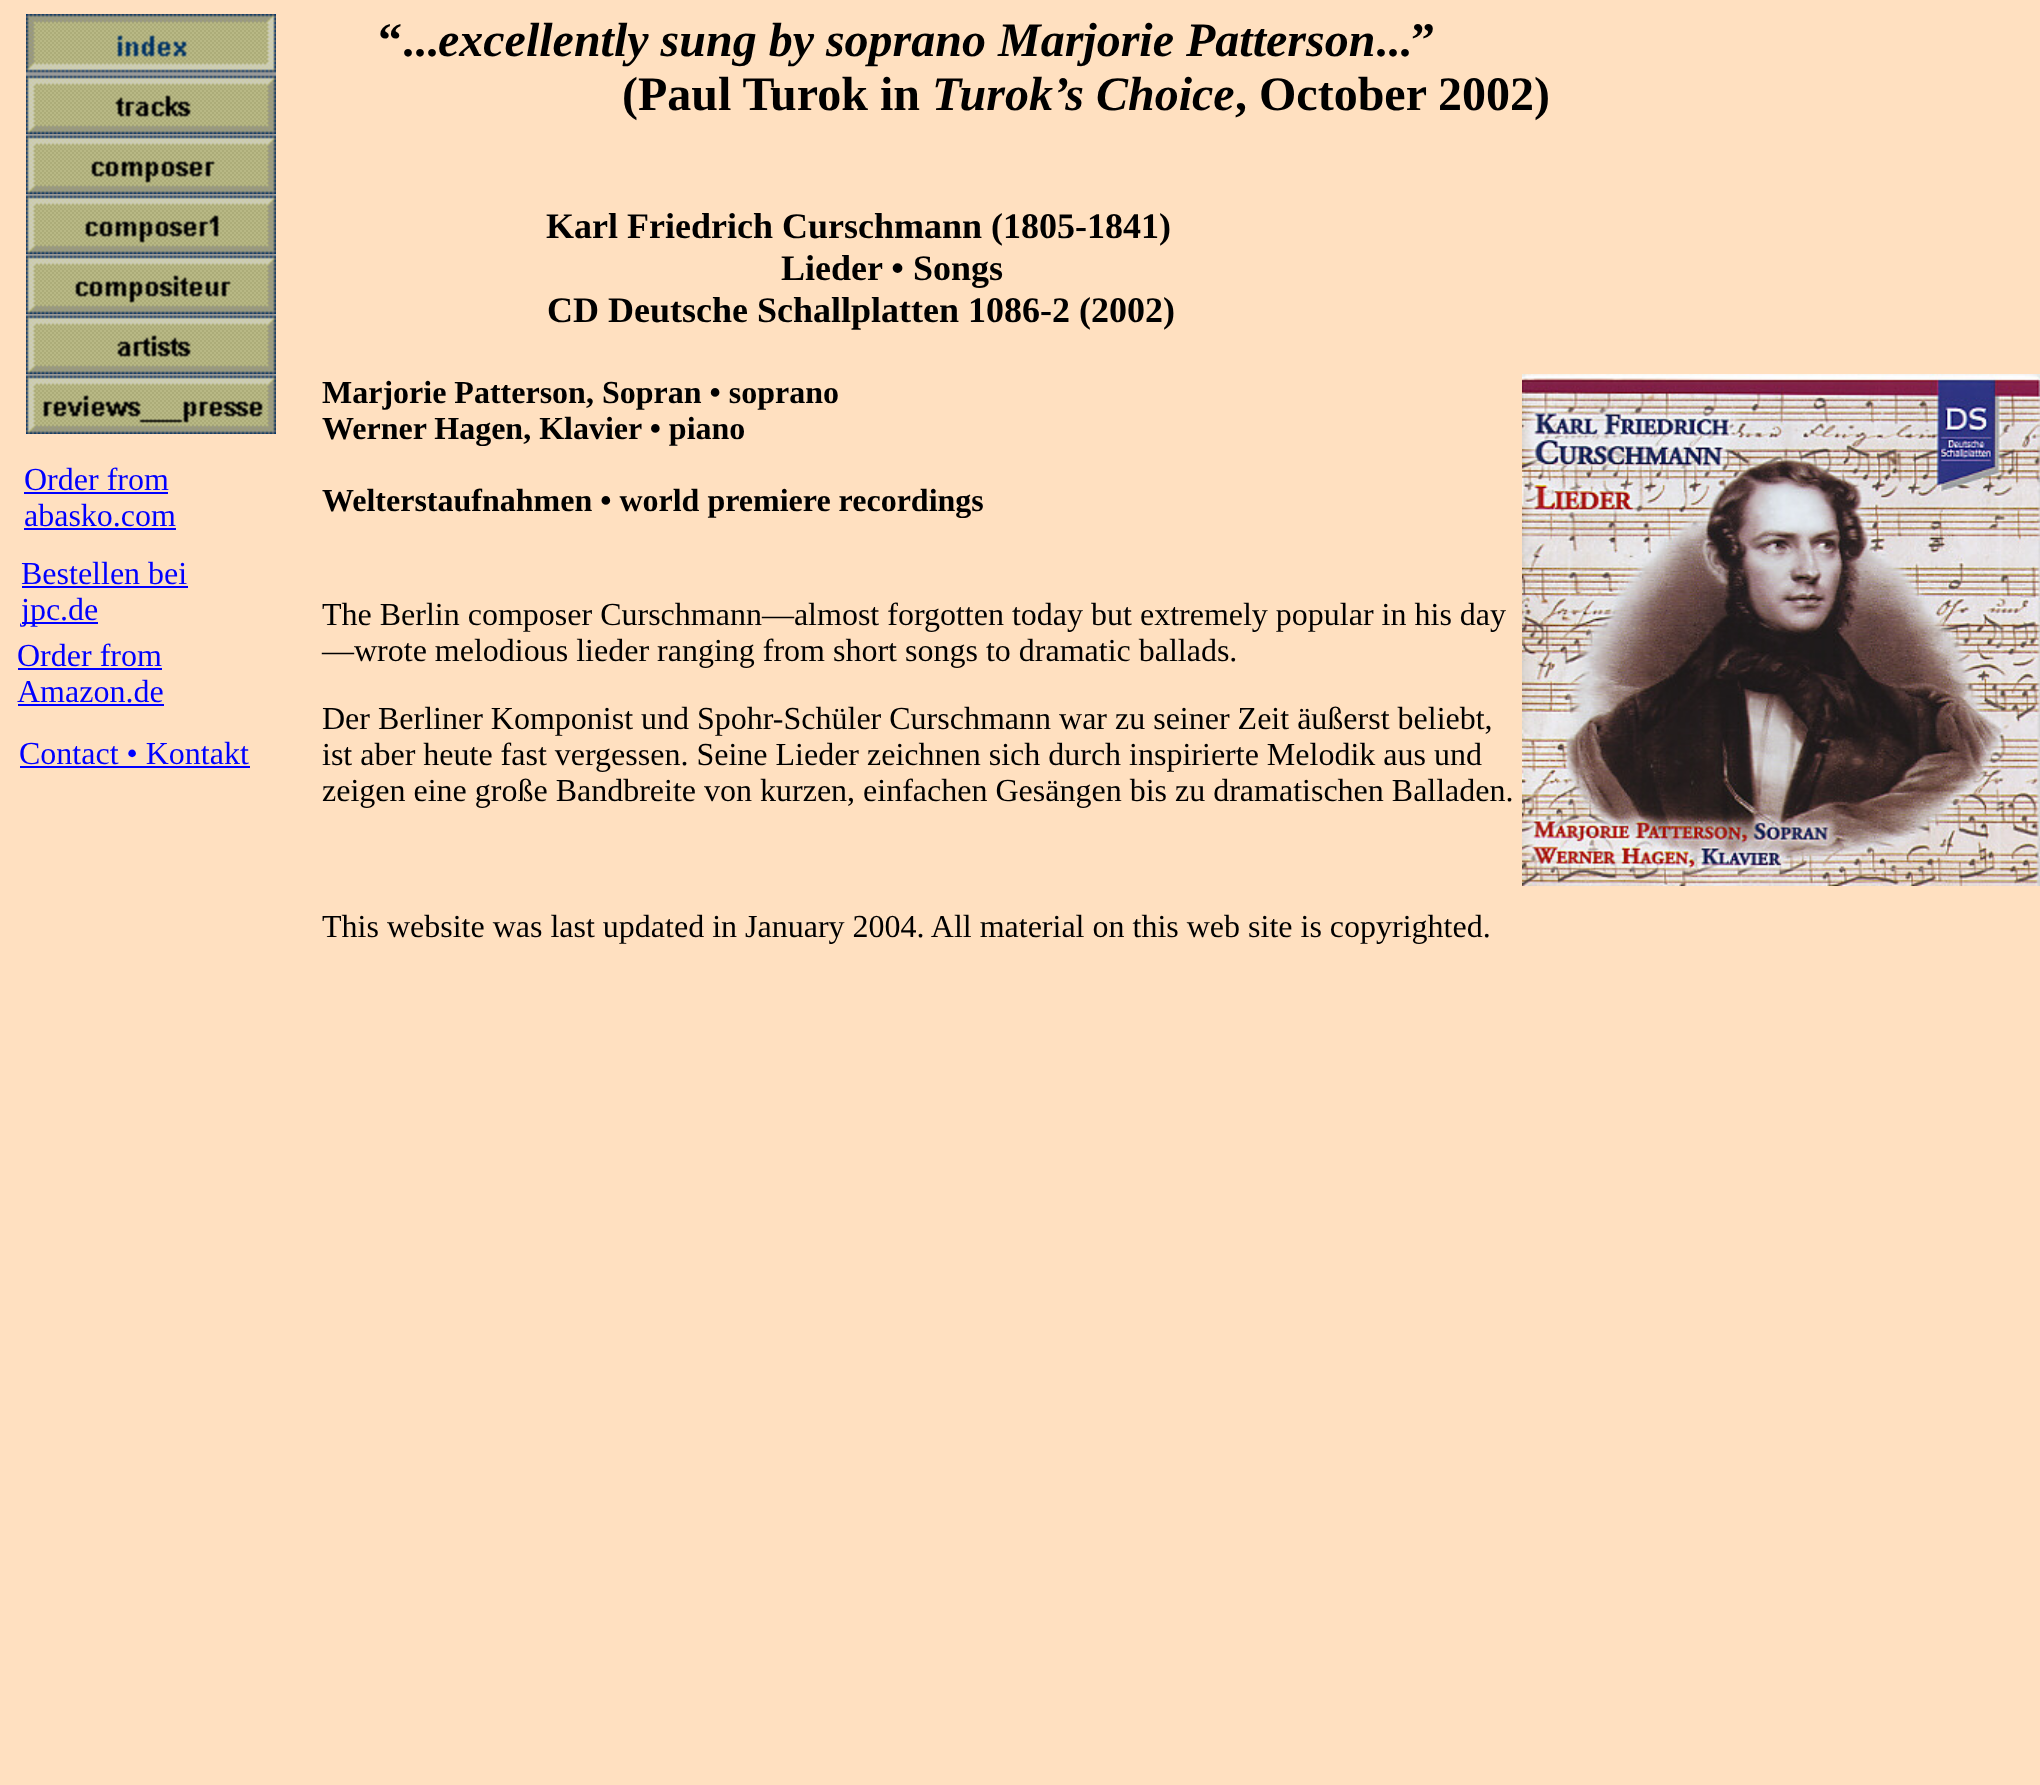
<svg xmlns="http://www.w3.org/2000/svg" width="2040" height="1785" viewBox="0 0 2040 1785">
  <rect width="100%" height="100%" fill="rgb(255,224,192)"/>
  <image x="26" y="14" width="250" height="60" href="pic1.png"/>
  <image x="26" y="74" width="250" height="60" href="pic2.png"/>
  <image x="26" y="134" width="250" height="60" href="pic3.png"/>
  <image x="26" y="194" width="250" height="60" href="pic4.png"/>
  <image x="26" y="254" width="250" height="60" href="pic5.png"/>
  <image x="26" y="314" width="250" height="60" href="pic6.png"/>
  <image x="26" y="374" width="250" height="60" href="pic7.png"/>
  <text x="24" y="490" font-family="Liberation Serif" font-size="32" fill="rgb(0,0,255)">Order from</text>
  <rect x="24" y="492" width="144" height="2" fill="rgb(0,0,255)"/>
  <text x="24" y="526" font-family="Liberation Serif" font-size="32" fill="rgb(0,0,255)">abasko.com</text>
  <rect x="24" y="528" width="152" height="2" fill="rgb(0,0,255)"/>
  <text x="21" y="584" font-family="Liberation Serif" font-size="32" fill="rgb(0,0,255)">Bestellen bei</text>
  <rect x="22" y="586" width="166" height="2" fill="rgb(0,0,255)"/>
  <rect x="22" y="622" width="76" height="2" fill="rgb(0,0,255)"/>
  <g font-family="Liberation Serif" font-size="32" fill="rgb(0,0,255)">
    <text x="21" y="620">jpc.de</text>
    <text x="17" y="666">Order from</text>
  </g>
  <rect x="18" y="668" width="144" height="2" fill="rgb(0,0,255)"/>
  <text x="17" y="702" font-family="Liberation Serif" font-size="32" fill="rgb(0,0,255)">Amazon.de</text>
  <rect x="18" y="704" width="146" height="2" fill="rgb(0,0,255)"/>
  <text x="19" y="764" font-family="Liberation Serif" font-size="32" fill="rgb(0,0,255)">Contact • Kontakt</text>
  <rect x="20" y="766" width="230" height="2" fill="rgb(0,0,255)"/>
  <text x="378" y="56" font-family="Liberation Serif" font-size="48" font-weight="bold" fill="rgb(0,0,0)">“...</text>
  <text x="438" y="56" font-family="Liberation Serif" font-size="48" font-weight="bold" font-style="italic" fill="rgb(0,0,0)">excellently sung by soprano Marjorie Patterson</text>
  <g font-family="Liberation Serif" font-size="48" font-weight="bold" fill="rgb(0,0,0)">
    <text x="1375" y="56">...”</text>
    <text x="622" y="110">(Paul Turok in</text>
  </g>
  <text x="932" y="110" font-family="Liberation Serif" font-size="48" font-weight="bold" font-style="italic" fill="rgb(0,0,0)">Turok’s Choice</text>
  <text x="1235" y="110" font-family="Liberation Serif" font-size="48" font-weight="bold" fill="rgb(0,0,0)">, October 2002)</text>
  <g font-family="Liberation Serif" font-size="36" font-weight="bold" fill="rgb(0,0,0)">
    <text x="546" y="238">Karl Friedrich Curschmann (1805-1841)</text>
    <text x="781" y="280">Lieder • Songs</text>
    <text x="547" y="322">CD Deutsche Schallplatten 1086-2 (2002)</text>
  </g>
  <text x="322" y="403" font-family="Liberation Serif" font-size="32" font-weight="bold" fill="rgb(0,0,0)">Marjorie Patterson, Sopran • soprano</text>
  <image x="1522" y="374" width="518" height="512" href="pic8.png"/>
  <g font-family="Liberation Serif" font-size="32" font-weight="bold" fill="rgb(0,0,0)">
    <text x="322" y="439">Werner Hagen, Klavier • piano</text>
    <text x="322" y="511">Welterstaufnahmen • world premiere recordings</text>
  </g>
  <g font-family="Liberation Serif" font-size="32" fill="rgb(0,0,0)">
    <text>
      <tspan x="322" y="625">The Berlin composer Curschmann—almost forgotten today but extremely popular in his day</tspan>
      <tspan x="322" y="661">—wrote melodious lieder ranging from short songs to dramatic ballads.</tspan>
    </text>
    <text>
      <tspan x="322" y="729">Der Berliner Komponist und Spohr-Schüler Curschmann war zu seiner Zeit äußerst beliebt,</tspan>
      <tspan x="322" y="765">ist aber heute fast vergessen. Seine Lieder zeichnen sich durch inspirierte Melodik aus und</tspan>
      <tspan x="322" y="801">zeigen eine große Bandbreite von kurzen, einfachen Gesängen bis zu dramatischen Balladen.</tspan>
    </text>
    <text x="322" y="937">This website was last updated in January 2004. All material on this web site is copyrighted.</text>
  </g>
</svg>
